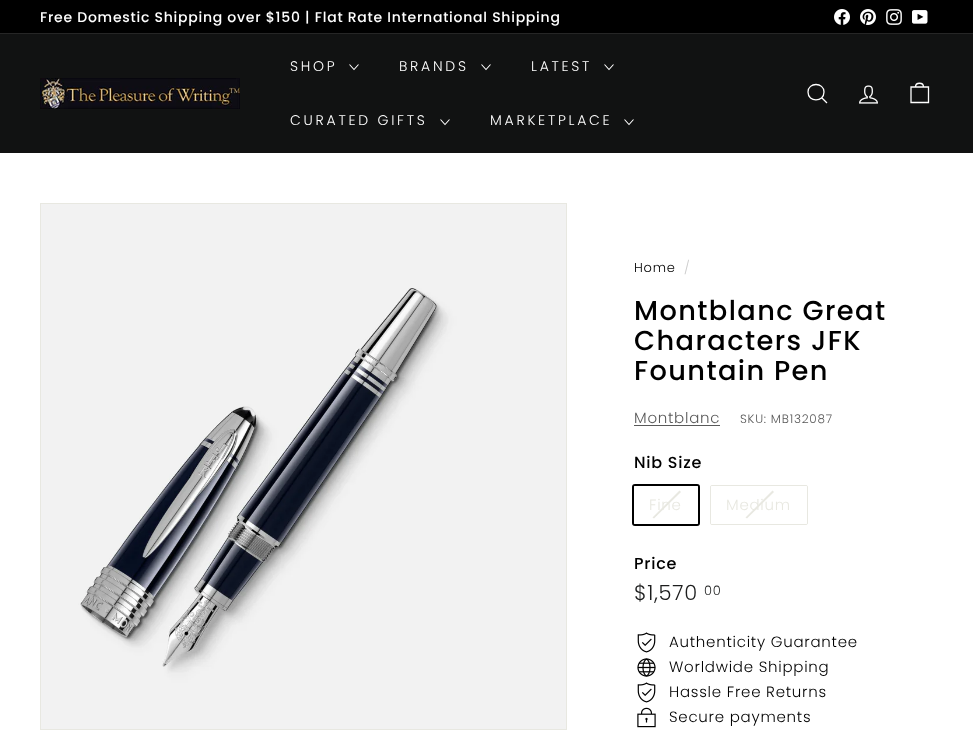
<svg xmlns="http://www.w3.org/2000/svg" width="973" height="741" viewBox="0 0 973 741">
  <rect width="100%" height="100%" fill="rgb(255,255,255)"/>
  <rect x="0" y="0" width="973" height="33" fill="rgb(0,0,0)"/>
  <text x="40" y="22" font-family="Poppins" font-size="14" font-weight="500" letter-spacing="0.75" fill="rgb(255,255,255)">Free Domestic Shipping over $150 | Flat Rate International Shipping</text>
  <image x="834" y="9" width="16" height="16" href="pic1.png"/>
  <image x="860" y="9" width="16" height="16" href="pic2.png"/>
  <image x="886" y="9" width="16" height="16" href="pic3.png"/>
  <image x="912" y="10" width="16" height="14" href="pic4.png"/>
  <rect x="0" y="33" width="973" height="1" fill="rgb(38,38,38)"/>
  <rect x="0" y="34" width="973" height="119" fill="rgb(17,18,18)"/>
  <image x="40" y="78" width="200" height="31" href="pic5.png"/>
  <text x="290" y="71" font-family="Poppins" font-size="14" font-weight="300" letter-spacing="2.75" fill="rgb(255,255,255)">SHOP</text>
  <path d="M349.5 64.5L354 69.5L358.5 64.5" fill="none" stroke="rgb(255,255,255)" stroke-width="1.1"/>
  <text x="399" y="71" font-family="Poppins" font-size="14" font-weight="300" letter-spacing="2.75" fill="rgb(255,255,255)">BRANDS</text>
  <path d="M481.5 64.5L486 69.5L490.5 64.5" fill="none" stroke="rgb(255,255,255)" stroke-width="1.1"/>
  <text x="531" y="71" font-family="Poppins" font-size="14" font-weight="300" letter-spacing="2.75" fill="rgb(255,255,255)">LATEST</text>
  <path d="M604.5 64.5L609 69.5L613.5 64.5" fill="none" stroke="rgb(255,255,255)" stroke-width="1.1"/>
  <text x="290" y="125" font-family="Poppins" font-size="14" font-weight="300" letter-spacing="2.75" fill="rgb(255,255,255)">CURATED GIFTS</text>
  <path d="M440.5 119.5L445 124.5L449.5 119.5" fill="none" stroke="rgb(255,255,255)" stroke-width="1.1"/>
  <text x="490" y="125" font-family="Poppins" font-size="14" font-weight="300" letter-spacing="2.75" fill="rgb(255,255,255)">MARKETPLACE</text>
  <path d="M624.5 119.5L629 124.5L633.5 119.5" fill="none" stroke="rgb(255,255,255)" stroke-width="1.1"/>
  <path d="M824 92C824 102.5 808 102.5 808 92C808 82 824 82 824 92M827 103L821.5 97.5" fill="none" stroke="rgb(255,255,255)" stroke-width="1.3"/>
  <image x="859" y="85" width="19" height="19" href="pic6.png"/>
  <path d="M915.5 87C915.5 82 923.5 82 923.5 87M911 87H928.5V102.5H911Z" fill="none" stroke="rgb(255,255,255)" stroke-width="1.3"/>
  <rect x="40.5" y="203.5" width="526" height="526" fill="none" stroke="rgb(232,232,225)"/>
  <image x="41" y="204" width="525" height="525" href="pic7.png"/>
  <text x="634" y="272" font-family="Poppins" font-size="13" font-weight="300" letter-spacing="0.75" fill="rgb(0,0,0)">Home</text>
  <text x="684" y="272" font-family="Poppins" font-size="13" font-weight="300" letter-spacing="0.75" fill="rgb(204,204,204)">/</text>
  <g font-family="Poppins" font-size="27.25" font-weight="500" letter-spacing="1.4" fill="rgb(0,0,0)">
    <text>
      <tspan x="634" y="320">Montblanc Great</tspan>
      <tspan x="634" y="350">Characters JFK</tspan>
      <tspan x="634" y="380">Fountain Pen</tspan>
    </text>
  </g>
  <text x="634" y="423" font-family="Poppins" font-size="15" font-weight="300" letter-spacing="0.75" fill="rgb(89,89,89)">Montblanc</text>
  <rect x="634" y="425" width="86" height="1" fill="rgb(89,89,89)"/>
  <text x="740" y="423" font-family="Poppins" font-size="12" font-weight="300" letter-spacing="0.75" fill="rgb(89,89,89)">SKU: MB132087</text>
  <text x="634" y="468" font-family="Poppins" font-size="16" font-weight="500" letter-spacing="0.75" fill="rgb(0,0,0)">Nib Size</text>
  <rect x="633" y="485" width="66" height="40" rx="2" fill="none" stroke="rgb(0,0,0)" stroke-width="2"/>
  <rect x="634" y="486" width="64" height="38" rx="1" fill="rgb(255,255,255)"/>
  <path d="M679.5 490.5L681 492L654 518.5L652.5 517.5Z" fill="rgb(232,232,225)"/>
  <text x="649" y="510" font-family="Poppins" font-size="15" font-weight="300" letter-spacing="0.75" fill="rgb(232,232,225)">Fine</text>
  <rect x="710.5" y="485.5" width="97" height="39" rx="1.5" fill="none" stroke="rgb(232,232,225)"/>
  <rect x="711" y="486" width="96" height="38" rx="1" fill="rgb(255,255,255)"/>
  <path d="M772.5 490.5L774 492L747 518.5L745.5 517.5Z" fill="rgb(232,232,225)"/>
  <text x="726" y="510" font-family="Poppins" font-size="15" font-weight="300" letter-spacing="0.75" fill="rgb(232,232,225)">Medium</text>
  <text x="634" y="569" font-family="Poppins" font-size="16" font-weight="500" letter-spacing="0.75" fill="rgb(0,0,0)">Price</text>
  <text x="634" y="600" font-family="Poppins" font-size="21" font-weight="300" letter-spacing="0.75" fill="rgb(28,29,29)">$1,570</text>
  <text x="704" y="595" font-family="Poppins" font-size="13" font-weight="300" letter-spacing="0.75" fill="rgb(28,29,29)">00</text>
  <image x="637" y="632" width="19" height="21" href="pic8.png"/>
  <text x="669" y="647" font-family="Poppins" font-size="15" font-weight="300" letter-spacing="0.75" fill="rgb(0,0,0)">Authenticity Guarantee</text>
  <image x="637" y="658" width="19" height="19" href="pic9.png"/>
  <text x="669" y="672" font-family="Poppins" font-size="15" font-weight="300" letter-spacing="0.75" fill="rgb(0,0,0)">Worldwide Shipping</text>
  <image x="637" y="682" width="19" height="21" href="pic8.png"/>
  <text x="669" y="697" font-family="Poppins" font-size="15" font-weight="300" letter-spacing="0.75" fill="rgb(0,0,0)">Hassle Free Returns</text>
  <image x="637" y="707" width="19" height="21" href="pic10.png"/>
  <text x="669" y="722" font-family="Poppins" font-size="15" font-weight="300" letter-spacing="0.75" fill="rgb(0,0,0)">Secure payments</text>
</svg>
